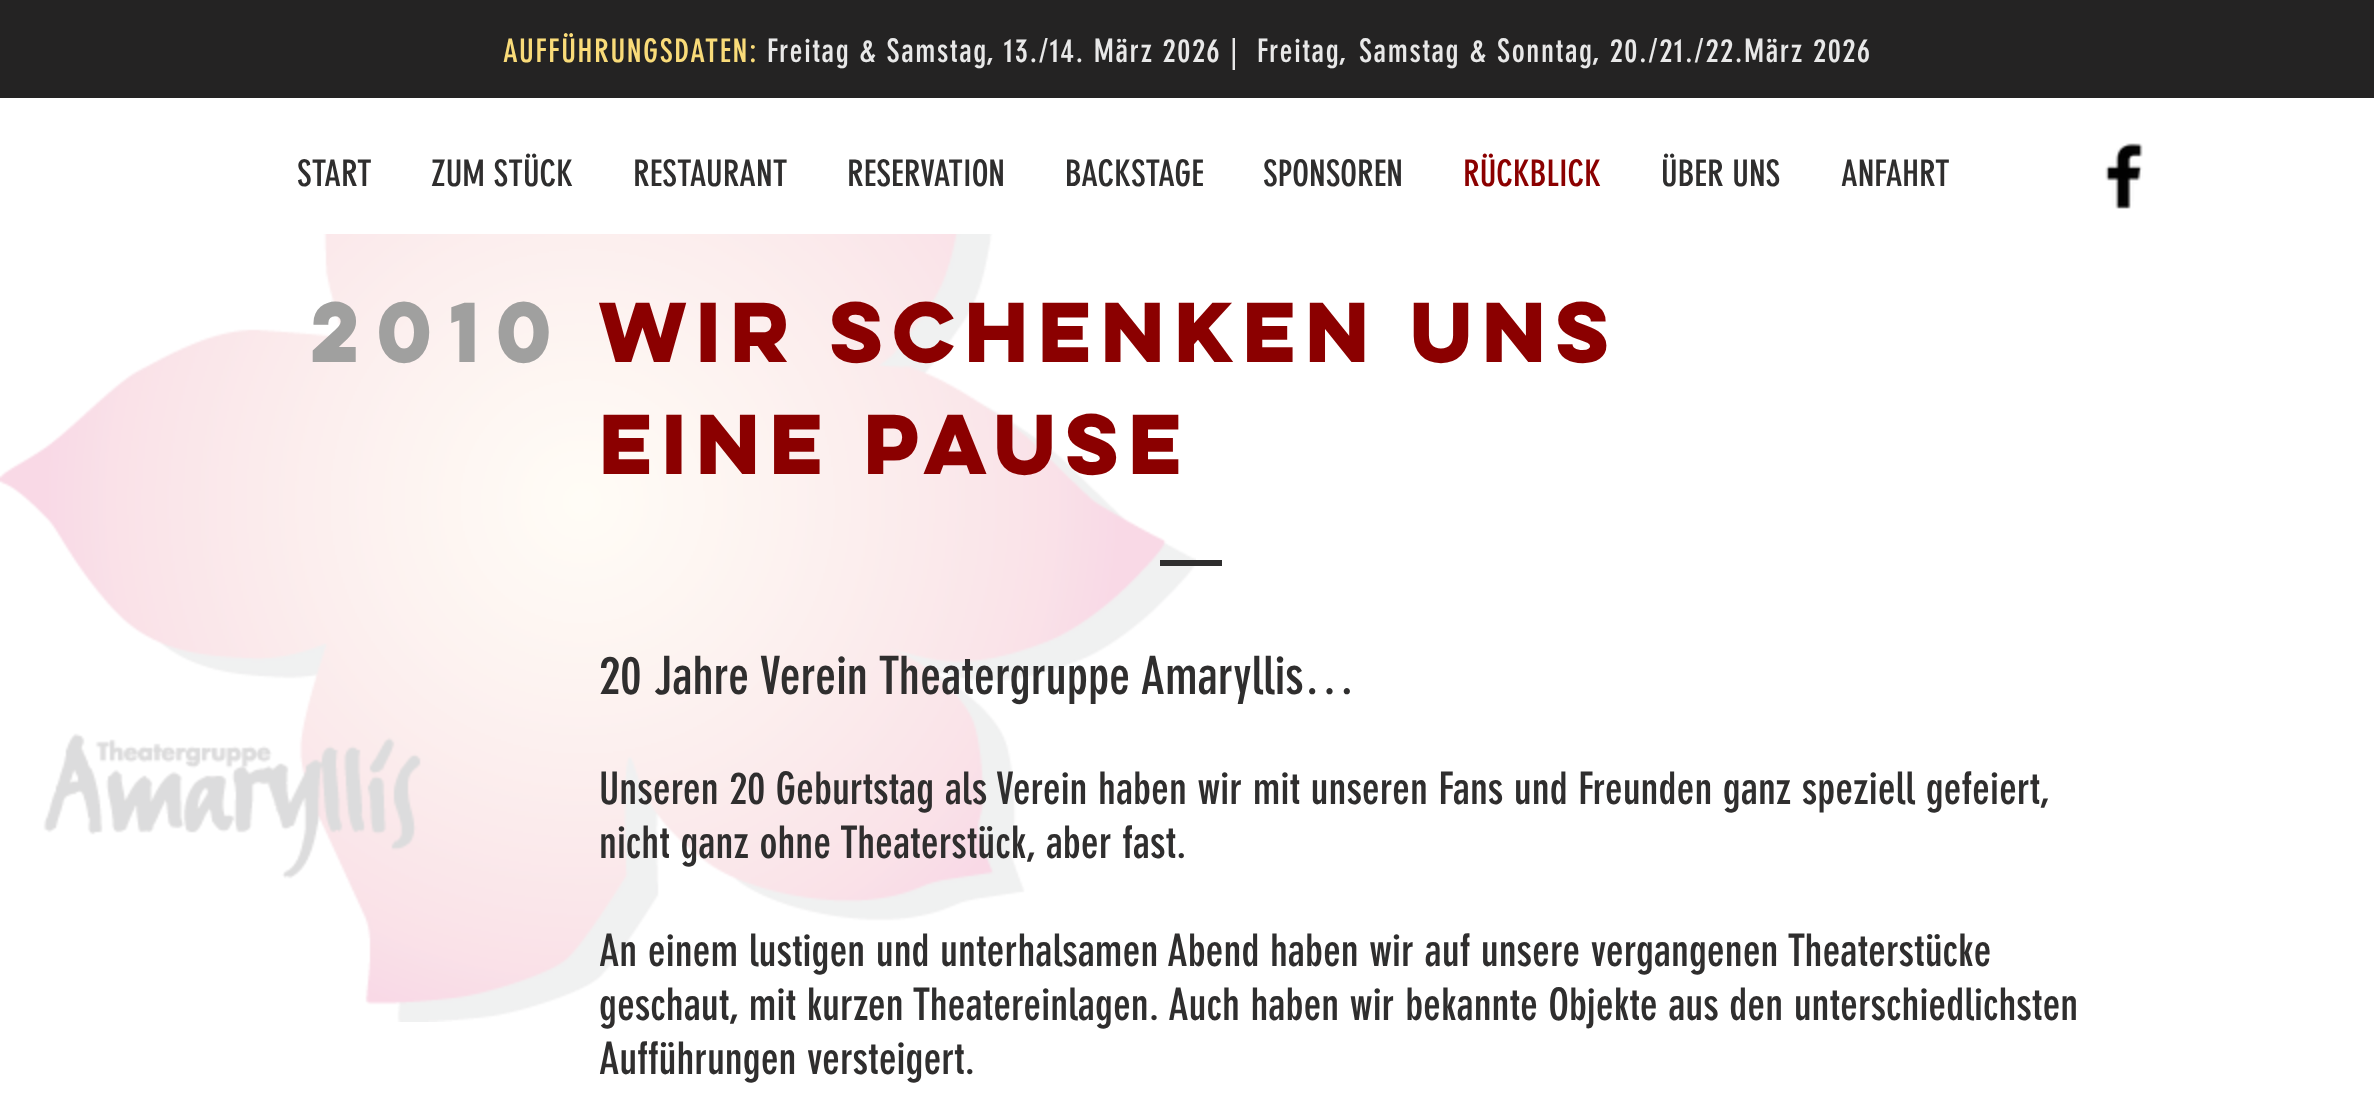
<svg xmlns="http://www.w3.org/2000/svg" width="2374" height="1101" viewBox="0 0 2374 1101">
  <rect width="100%" height="100%" fill="rgb(255,255,255)"/>
  <rect x="0" y="0" width="2374" height="98" fill="rgb(36,35,35)"/>
  <text x="503" y="62" font-family="'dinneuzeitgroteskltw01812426'" font-size="32" letter-spacing="1.6" fill="rgb(249,219,121)">AUFFÜHRUNGSDATEN:</text>
  <g font-family="'dinneuzeitgroteskltw01812426'" font-size="32" letter-spacing="1.6" fill="rgb(232,232,232)">
    <text x="767" y="62" word-spacing="-0.25" xml:space="preserve">Freitag &amp; Samstag, 13./14. März 2026 |  Freitag,</text>
    <text x="1359" y="62">Samstag &amp; Sonntag, 20./21./22.März 2026</text>
  </g>
  <g font-family="'dinneuzeitgroteskltw01812426'" font-size="36" fill="rgb(47,46,46)">
    <text x="297" y="186">START</text>
    <text x="431" y="186">ZUM STÜCK</text>
    <text x="633" y="186">RESTAURANT</text>
    <text x="847" y="186">RESERVATION</text>
    <text x="1065" y="186">BACKSTAGE</text>
    <text x="1263" y="186">SPONSOREN</text>
  </g>
  <text x="1463" y="186" font-family="'dinneuzeitgroteskltw01812426'" font-size="36" fill="rgb(139,0,0)">RÜCKBLICK</text>
  <g font-family="'dinneuzeitgroteskltw01812426'" font-size="36" fill="rgb(47,46,46)">
    <text x="1661" y="186">ÜBER UNS</text>
    <text x="1841" y="186">ANFAHRT</text>
  </g>
  <image x="2105" y="143" width="38" height="66" href="pic1.png"/>
  <image x="0" y="234" width="1196" height="788" href="pic2.png"/>
  <text x="310" y="362" font-family="'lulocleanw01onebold'" font-size="76" font-weight="bold" fill="rgb(160,160,159)">2010</text>
  <g font-family="'lulocleanw01onebold'" font-size="76" font-weight="bold" letter-spacing="-7.6" fill="rgb(139,0,0)">
    <text>
      <tspan x="599" y="362">wir schenken uns</tspan>
      <tspan x="599" y="474">eine pause</tspan>
    </text>
  </g>
  <rect x="1160" y="560" width="62" height="6" fill="rgb(47,46,46)"/>
  <text x="599" y="694" font-family="'dinneuzeitgroteskltw01812426'" font-size="52" fill="rgb(47,46,46)">20 Jahre Verein Theatergruppe Amaryllis…</text>
  <g font-family="'dinneuzeitgroteskltw01812426'" font-size="44" fill="rgb(47,46,46)">
    <text>
      <tspan x="599" y="804">Unseren 20 Geburtstag als Verein haben wir mit unseren Fans und Freunden ganz speziell gefeiert,</tspan>
      <tspan x="599" y="858">nicht ganz ohne Theaterstück, aber fast.</tspan>
    </text>
    <text>
      <tspan x="599" y="966">An einem lustigen und unterhalsamen Abend haben wir auf unsere vergangenen Theaterstücke</tspan>
      <tspan x="599" y="1020">geschaut, mit kurzen Theatereinlagen. Auch haben wir bekannte Objekte aus den unterschiedlichsten</tspan>
      <tspan x="599" y="1074">Aufführungen versteigert.</tspan>
    </text>
  </g>
</svg>
